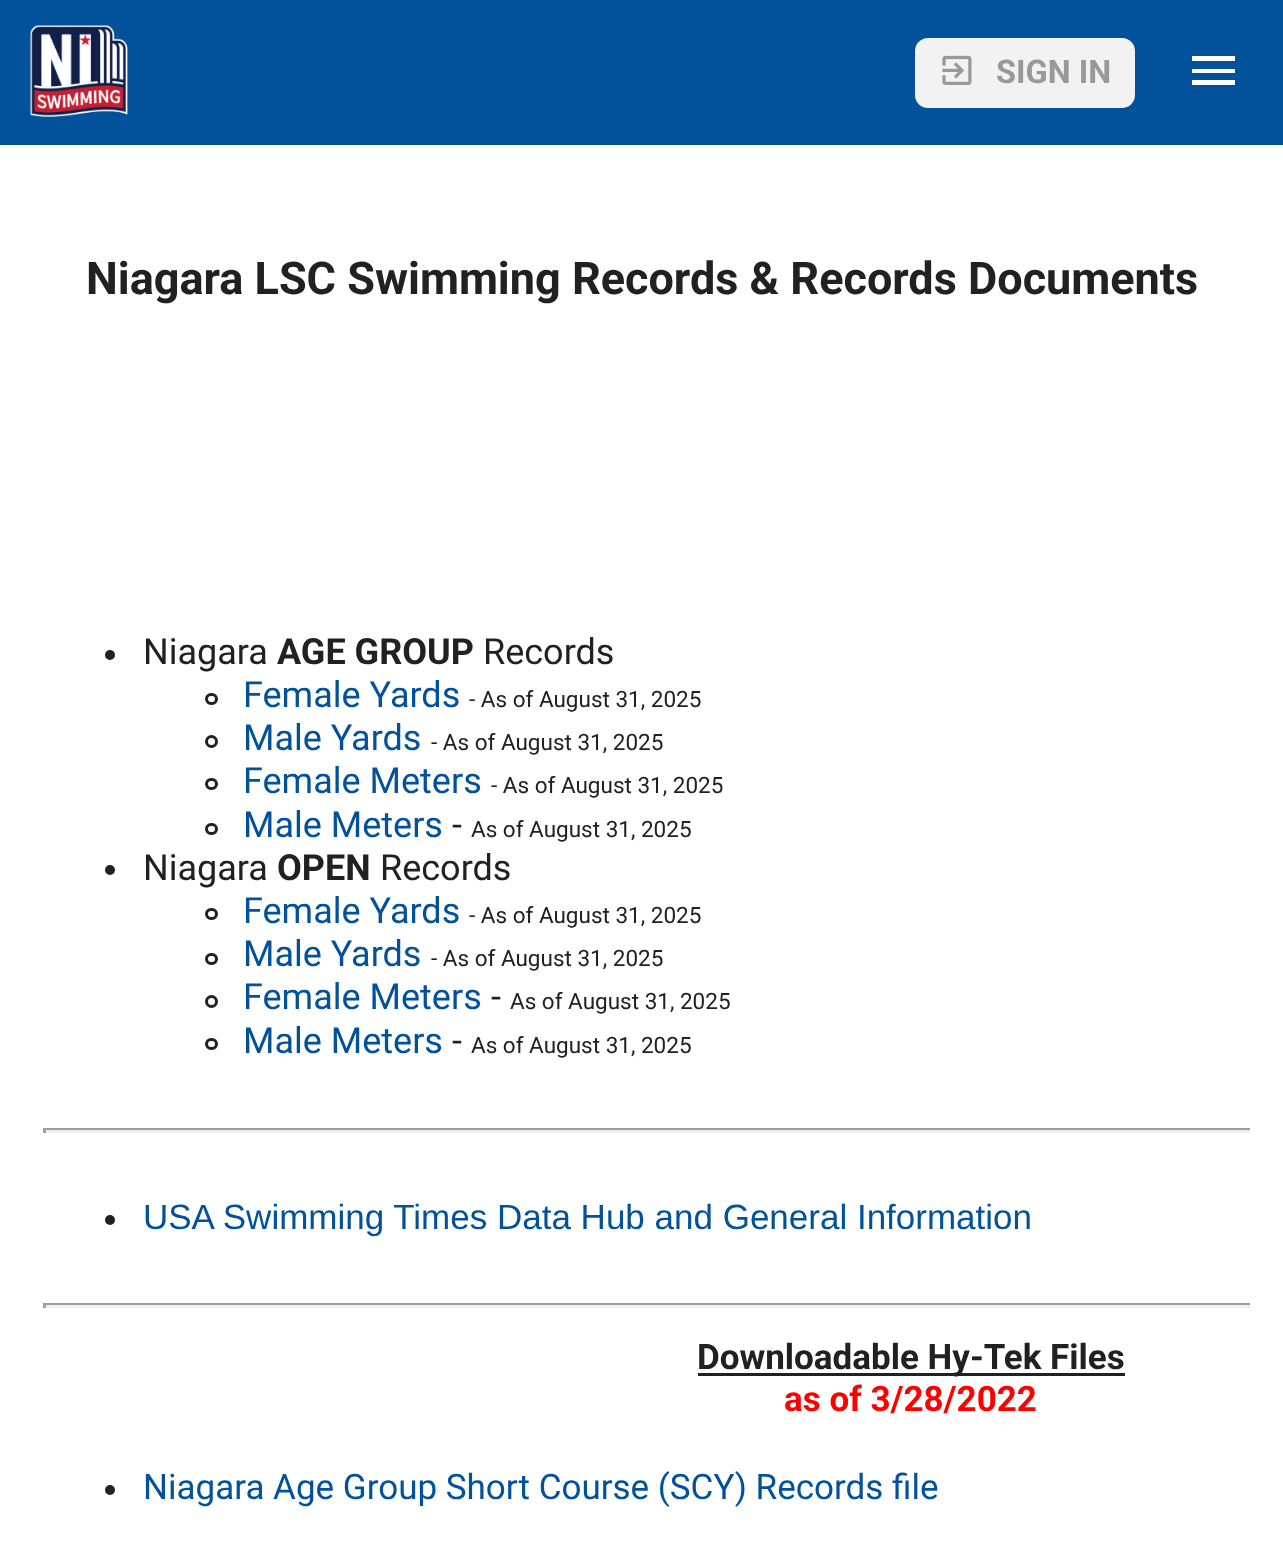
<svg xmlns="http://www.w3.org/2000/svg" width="1283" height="1556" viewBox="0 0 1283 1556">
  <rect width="100%" height="100%" fill="rgb(255,255,255)"/>
  <rect x="0" y="0" width="1283" height="145" fill="rgb(1,81,155)"/>
  <image x="29" y="25" width="99" height="92" href="pic1.png"/>
  <rect x="915" y="38" width="220" height="70" rx="13" fill="rgb(242,242,242)"/>
  <image x="942" y="55" width="30" height="30" href="pic2.png"/>
  <text x="996" y="83" font-family="Roboto" font-size="32.5" font-weight="bold" fill="rgb(153,153,153)">SIGN IN</text>
  <path d="M1192 56H1235V61H1192ZM1192 69H1235V73H1192ZM1192 80H1235V85H1192Z" fill="rgb(255,255,255)"/>
  <text x="86" y="294" font-family="Roboto" font-size="45" font-weight="bold" fill="rgb(33,33,33)">Niagara LSC Swimming Records &amp; Records Documents</text>
  <circle cx="110" cy="655" r="5" fill="rgb(33,33,33)"/>
  <text x="143" y="664" font-family="Roboto" font-size="36" fill="rgb(33,33,33)">Niagara</text>
  <text x="277" y="664" font-family="Roboto" font-size="36" font-weight="bold" fill="rgb(33,33,33)">AGE GROUP</text>
  <text x="483" y="664" font-family="Roboto" font-size="36" fill="rgb(33,33,33)">Records</text>
  <rect x="206.5" y="694.5" width="10" height="9" rx="4.5" fill="none" stroke="rgb(33,33,33)" stroke-width="3"/>
  <text x="243" y="707" font-family="Roboto" font-size="36" fill="rgb(1,81,155)">Female Yards</text>
  <text x="469" y="707" font-family="Roboto" font-size="22.5" fill="rgb(33,33,33)">- As of August 31, 2025</text>
  <circle cx="211.5" cy="741.5" r="5" fill="none" stroke="rgb(33,33,33)" stroke-width="3"/>
  <text x="243" y="750" font-family="Roboto" font-size="36" fill="rgb(1,81,155)">Male Yards</text>
  <text x="431" y="750" font-family="Roboto" font-size="22.5" fill="rgb(33,33,33)">- As of August 31, 2025</text>
  <rect x="206.5" y="779.5" width="10" height="9" rx="4.5" fill="none" stroke="rgb(33,33,33)" stroke-width="3"/>
  <text x="243" y="793" font-family="Roboto" font-size="36" fill="rgb(1,81,155)">Female Meters</text>
  <text x="491" y="793" font-family="Roboto" font-size="22.5" fill="rgb(33,33,33)">- As of August 31, 2025</text>
  <rect x="206.5" y="824.5" width="10" height="9" rx="4.5" fill="none" stroke="rgb(33,33,33)" stroke-width="3"/>
  <text x="243" y="837" font-family="Roboto" font-size="36" fill="rgb(1,81,155)">Male Meters</text>
  <text x="452" y="837" font-family="Roboto" font-size="36" fill="rgb(33,33,33)">-</text>
  <text x="471" y="837" font-family="Roboto" font-size="22.5" fill="rgb(33,33,33)">As of August 31, 2025</text>
  <circle cx="110" cy="870" r="5" fill="rgb(33,33,33)"/>
  <text x="143" y="880" font-family="Roboto" font-size="36" fill="rgb(33,33,33)">Niagara</text>
  <text x="277" y="880" font-family="Roboto" font-size="36" font-weight="bold" fill="rgb(33,33,33)">OPEN</text>
  <text x="380" y="880" font-family="Roboto" font-size="36" fill="rgb(33,33,33)">Records</text>
  <rect x="206.5" y="909.5" width="10" height="9" rx="4.5" fill="none" stroke="rgb(33,33,33)" stroke-width="3"/>
  <text x="243" y="923" font-family="Roboto" font-size="36" fill="rgb(1,81,155)">Female Yards</text>
  <text x="469" y="923" font-family="Roboto" font-size="22.5" fill="rgb(33,33,33)">- As of August 31, 2025</text>
  <rect x="206.5" y="954.5" width="10" height="9" rx="4.5" fill="none" stroke="rgb(33,33,33)" stroke-width="3"/>
  <text x="243" y="966" font-family="Roboto" font-size="36" fill="rgb(1,81,155)">Male Yards</text>
  <text x="431" y="966" font-family="Roboto" font-size="22.5" fill="rgb(33,33,33)">- As of August 31, 2025</text>
  <circle cx="211.5" cy="1001.5" r="5" fill="none" stroke="rgb(33,33,33)" stroke-width="3"/>
  <text x="243" y="1009" font-family="Roboto" font-size="36" fill="rgb(1,81,155)">Female Meters</text>
  <text x="491" y="1009" font-family="Roboto" font-size="36" fill="rgb(33,33,33)">-</text>
  <text x="510" y="1009" font-family="Roboto" font-size="22.5" fill="rgb(33,33,33)">As of August 31, 2025</text>
  <rect x="206.5" y="1039.5" width="10" height="9" rx="4.5" fill="none" stroke="rgb(33,33,33)" stroke-width="3"/>
  <text x="243" y="1053" font-family="Roboto" font-size="36" fill="rgb(1,81,155)">Male Meters</text>
  <text x="452" y="1053" font-family="Roboto" font-size="36" fill="rgb(33,33,33)">-</text>
  <text x="471" y="1053" font-family="Roboto" font-size="22.5" fill="rgb(33,33,33)">As of August 31, 2025</text>
  <rect x="43" y="1128" width="1207" height="2" fill="rgb(159,159,159)"/>
  <rect x="43" y="1130" width="1207" height="3" fill="rgb(238,238,238)"/>
  <rect x="43" y="1128" width="3" height="5" fill="rgb(159,159,159)"/>
  <circle cx="110" cy="1220" r="5" fill="rgb(33,33,33)"/>
  <text x="143" y="1229" font-family="Liberation Sans" font-size="35" fill="rgb(1,81,155)">USA Swimming Times Data Hub and General Information</text>
  <rect x="43" y="1303" width="1207" height="2" fill="rgb(159,159,159)"/>
  <rect x="43" y="1305" width="1207" height="3" fill="rgb(238,238,238)"/>
  <rect x="43" y="1303" width="3" height="5" fill="rgb(159,159,159)"/>
  <rect x="698" y="1373" width="427" height="3" fill="rgb(33,33,33)"/>
  <text x="697" y="1369" font-family="Roboto" font-size="35" font-weight="bold" fill="rgb(33,33,33)">Downloadable Hy-Tek Files</text>
  <text x="784" y="1411" font-family="Roboto" font-size="35" font-weight="bold" fill="rgb(255,0,0)">as of 3/28/2022</text>
  <circle cx="110" cy="1490" r="5" fill="rgb(33,33,33)"/>
  <text x="143" y="1499" font-family="Roboto" font-size="35" fill="rgb(1,81,155)">Niagara Age Group Short Course (SCY) Records file</text>
</svg>
